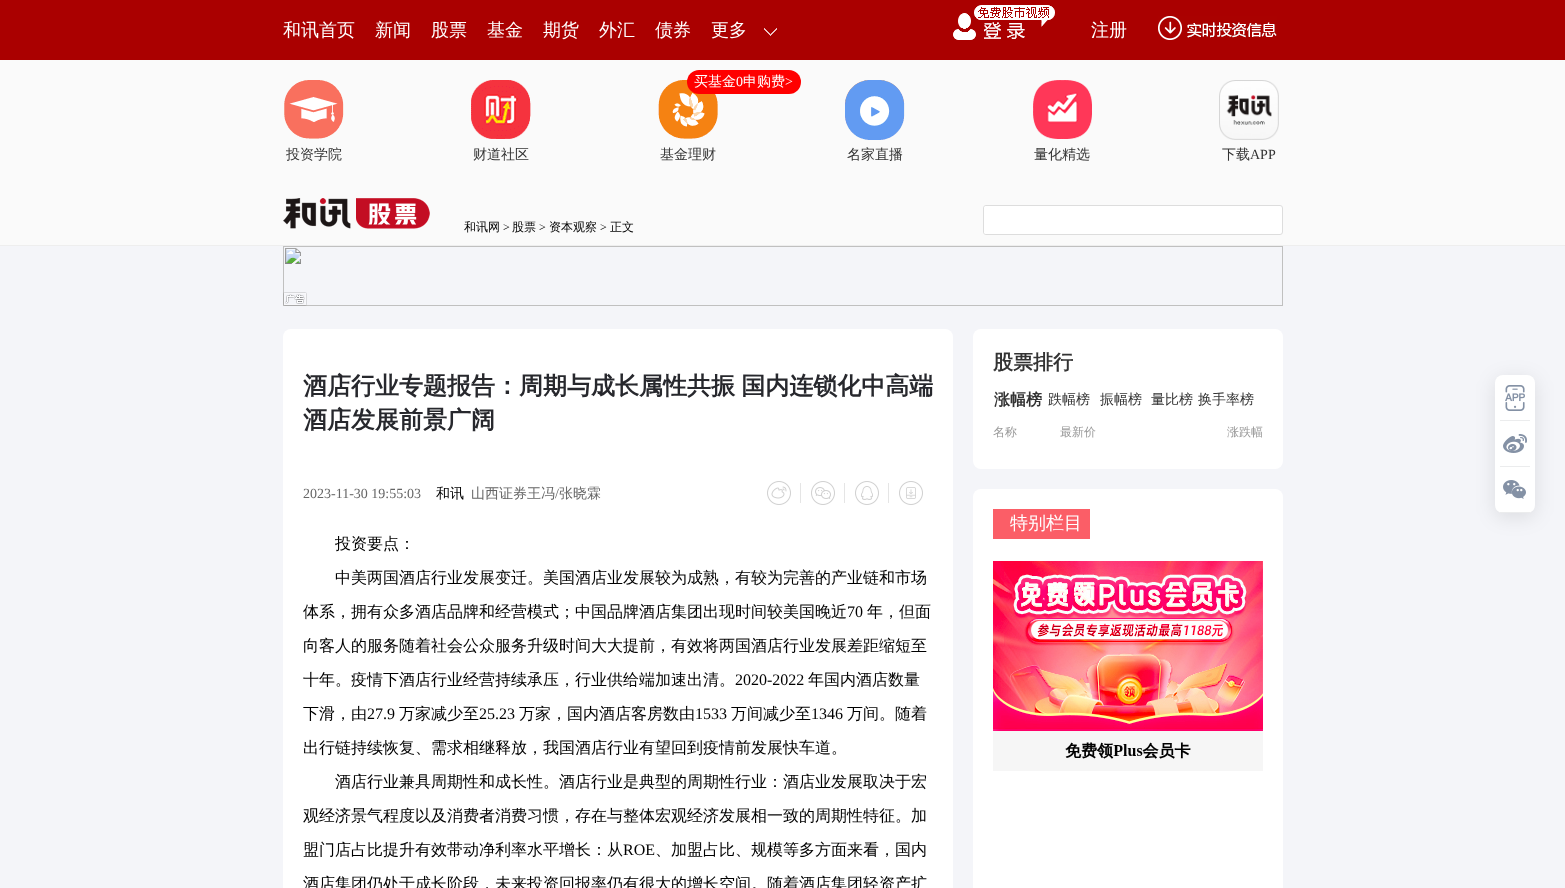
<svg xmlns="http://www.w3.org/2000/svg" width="1565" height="888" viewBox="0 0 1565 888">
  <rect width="100%" height="100%" fill="rgb(250,250,250)"/>
  <rect x="0" y="0" width="1565" height="60" fill="rgb(170,0,0)"/>
  <g font-family="WenQuanYi Zen Hei" font-size="18" font-weight="500" fill="rgb(255,255,255)">
    <text x="283" y="36">和讯首页</text>
    <text x="375" y="36">新闻</text>
    <text x="431" y="36">股票</text>
    <text x="487" y="36">基金</text>
    <text x="543" y="36">期货</text>
    <text x="599" y="36">外汇</text>
    <text x="655" y="36">债券</text>
  </g>
  <image x="764" y="28" width="13" height="8" href="pic1.png"/>
  <text x="711" y="36" font-family="WenQuanYi Zen Hei" font-size="18" font-weight="500" fill="rgb(255,255,255)">更多</text>
  <image x="953" y="5" width="102" height="35" href="pic2.png"/>
  <text x="1091" y="36" font-family="WenQuanYi Zen Hei" font-size="18" font-weight="500" fill="rgb(255,255,255)">注册</text>
  <image x="1158" y="16" width="119" height="24" href="pic3.png"/>
  <rect x="0" y="245" width="1565" height="1" fill="rgb(238,238,238)"/>
  <image x="284" y="80" width="60" height="59" href="pic4.png"/>
  <text x="286" y="159" font-family="WenQuanYi Zen Hei" font-size="14" font-weight="500" fill="rgb(51,51,51)">投资学院</text>
  <image x="471" y="80" width="60" height="59" href="pic5.png"/>
  <text x="473" y="159" font-family="WenQuanYi Zen Hei" font-size="14" font-weight="500" fill="rgb(51,51,51)">财道社区</text>
  <image x="658" y="80" width="60" height="59" href="pic6.png"/>
  <rect x="687" y="70" width="114" height="24" rx="12" fill="rgb(255,0,0)"/>
  <text x="694" y="86" font-family="WenQuanYi Zen Hei" font-size="14" font-weight="500" fill="rgb(255,255,255)">买基金</text>
  <text x="736" y="86" font-family="Liberation Serif" font-size="14" fill="rgb(255,255,255)">0</text>
  <text x="743" y="86" font-family="WenQuanYi Zen Hei" font-size="14" font-weight="500" fill="rgb(255,255,255)">申购费</text>
  <text x="785" y="86" font-family="Liberation Serif" font-size="14" fill="rgb(255,255,255)">&gt;</text>
  <text x="660" y="159" font-family="WenQuanYi Zen Hei" font-size="14" font-weight="500" fill="rgb(51,51,51)">基金理财</text>
  <image x="845" y="80" width="60" height="60" href="pic7.png"/>
  <text x="847" y="159" font-family="WenQuanYi Zen Hei" font-size="14" font-weight="500" fill="rgb(51,51,51)">名家直播</text>
  <image x="1033" y="80" width="59" height="59" href="pic8.png"/>
  <text x="1034" y="159" font-family="WenQuanYi Zen Hei" font-size="14" font-weight="500" fill="rgb(51,51,51)">量化精选</text>
  <image x="1219" y="80" width="60" height="60" href="pic9.png"/>
  <text x="1222" y="159" font-family="WenQuanYi Zen Hei" font-size="14" font-weight="500" fill="rgb(51,51,51)">下载</text>
  <text x="1250" y="159" font-family="Liberation Serif" font-size="14" fill="rgb(51,51,51)">APP</text>
  <image x="283" y="198" width="68" height="31" href="pic10.png"/>
  <image x="356" y="198" width="74" height="31" href="pic11.png"/>
  <text x="464" y="231" font-family="WenQuanYi Zen Hei" font-size="12" font-weight="500" fill="rgb(0,0,0)">和讯网</text>
  <text x="503" y="231" font-family="Liberation Serif" font-size="12" fill="rgb(0,0,0)">&gt;</text>
  <text x="512" y="231" font-family="WenQuanYi Zen Hei" font-size="12" font-weight="500" fill="rgb(0,0,0)">股票</text>
  <text x="539" y="231" font-family="Liberation Serif" font-size="12" fill="rgb(0,0,0)">&gt;</text>
  <text x="549" y="231" font-family="WenQuanYi Zen Hei" font-size="12" font-weight="500" fill="rgb(0,0,0)">资本观察</text>
  <text x="600" y="231" font-family="Liberation Serif" font-size="12" fill="rgb(0,0,0)">&gt;</text>
  <text x="610" y="231" font-family="WenQuanYi Zen Hei" font-size="12" font-weight="500" fill="rgb(0,0,0)">正文</text>
  <rect x="983.5" y="205.5" width="299" height="29" rx="2.5" fill="rgb(255,255,255)" stroke="rgb(221,221,221)"/>
  <path d="M986 206H1240V234H986C985 234 984 233 984 232V208C984 207 985 206 986 206Z" fill="rgb(255,255,255)"/>
  <rect x="0" y="246" width="1565" height="642" fill="rgb(244,245,249)"/>
  <image x="283" y="246" width="1000" height="60" href="pic12.png"/>
  <rect x="283" y="329" width="670" height="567" rx="8" fill="rgb(255,255,255)"/>
  <g font-family="WenQuanYi Zen Hei" font-size="24" font-weight="bold" fill="rgb(39,40,45)">
    <text>
      <tspan x="303" y="394" word-spacing="-1">酒店行业专题报告：周期与成长属性共振 国内连锁化中高端</tspan>
      <tspan x="303" y="428">酒店发展前景广阔</tspan>
    </text>
  </g>
  <text x="303" y="498" font-family="Liberation Serif" font-size="14" fill="rgb(102,102,102)">2023-11-30 19:55:03</text>
  <text x="436" y="498" font-family="WenQuanYi Zen Hei" font-size="14" font-weight="500" fill="rgb(0,0,0)">和讯</text>
  <text x="471" y="498" font-family="WenQuanYi Zen Hei" font-size="14" font-weight="500" fill="rgb(102,102,102)">山西证券王冯</text>
  <text x="555" y="498" font-family="Liberation Serif" font-size="14" fill="rgb(102,102,102)">/</text>
  <text x="559" y="498" font-family="WenQuanYi Zen Hei" font-size="14" font-weight="500" fill="rgb(102,102,102)">张晓霖</text>
  <image x="767" y="481" width="24" height="24" href="pic13.png"/>
  <rect x="800" y="483" width="1" height="20" fill="rgb(229,229,229)"/>
  <image x="811" y="481" width="24" height="24" href="pic14.png"/>
  <rect x="844" y="483" width="1" height="20" fill="rgb(229,229,229)"/>
  <image x="855" y="481" width="24" height="24" href="pic15.png"/>
  <rect x="888" y="483" width="1" height="20" fill="rgb(229,229,229)"/>
  <image x="899" y="481" width="24" height="24" href="pic16.png"/>
  <g font-family="WenQuanYi Zen Hei" font-size="16" font-weight="500" fill="rgb(0,0,0)">
    <text x="335" y="549">投资要点：</text>
    <text x="335" y="583">中美两国酒店行业发展变迁。美国酒店业发展较为成熟，有较为完善的产业链和市场</text>
    <text x="303" y="617">体系，拥有众多酒店品牌和经营模式；中国品牌酒店集团出现时间较美国晚近</text>
  </g>
  <text x="847" y="617" font-family="Liberation Serif" font-size="16" fill="rgb(0,0,0)">70</text>
  <g font-family="WenQuanYi Zen Hei" font-size="16" font-weight="500" fill="rgb(0,0,0)">
    <text x="867" y="617">年，但面</text>
    <text x="303" y="651">向客人的服务随着社会公众服务升级时间大大提前，有效将两国酒店行业发展差距缩短至</text>
    <text x="303" y="685">十年。疫情下酒店行业经营持续承压，行业供给端加速出清。</text>
  </g>
  <text x="735" y="685" font-family="Liberation Serif" font-size="16" fill="rgb(0,0,0)">2020-2022</text>
  <g font-family="WenQuanYi Zen Hei" font-size="16" font-weight="500" fill="rgb(0,0,0)">
    <text x="808" y="685">年国内酒店数量</text>
    <text x="303" y="719">下滑，由</text>
  </g>
  <text x="367" y="719" font-family="Liberation Serif" font-size="16" fill="rgb(0,0,0)">27.9</text>
  <text x="399" y="719" font-family="WenQuanYi Zen Hei" font-size="16" font-weight="500" fill="rgb(0,0,0)">万家减少至</text>
  <text x="479" y="719" font-family="Liberation Serif" font-size="16" fill="rgb(0,0,0)">25.23</text>
  <text x="519" y="719" font-family="WenQuanYi Zen Hei" font-size="16" font-weight="500" fill="rgb(0,0,0)">万家，国内酒店客房数由</text>
  <text x="695" y="719" font-family="Liberation Serif" font-size="16" fill="rgb(0,0,0)">1533</text>
  <text x="731" y="719" font-family="WenQuanYi Zen Hei" font-size="16" font-weight="500" fill="rgb(0,0,0)">万间减少至</text>
  <text x="811" y="719" font-family="Liberation Serif" font-size="16" fill="rgb(0,0,0)">1346</text>
  <g font-family="WenQuanYi Zen Hei" font-size="16" font-weight="500" fill="rgb(0,0,0)">
    <text x="847" y="719">万间。随着</text>
    <text x="303" y="753">出行链持续恢复、需求相继释放，我国酒店行业有望回到疫情前发展快车道。</text>
    <text x="335" y="787">酒店行业兼具周期性和成长性。酒店行业是典型的周期性行业：酒店业发展取决于宏</text>
    <text x="303" y="821">观经济景气程度以及消费者消费习惯，存在与整体宏观经济发展相一致的周期性特征。加</text>
    <text x="303" y="855">盟门店占比提升有效带动净利率水平增长：从</text>
  </g>
  <text x="623" y="855" font-family="Liberation Serif" font-size="16" fill="rgb(0,0,0)">ROE</text>
  <g font-family="WenQuanYi Zen Hei" font-size="16" font-weight="500" fill="rgb(0,0,0)">
    <text x="655" y="855">、加盟占比、规模等多方面来看，国内</text>
    <text x="303" y="889">酒店集团仍处于成长阶段，未来投资回报率仍有很大的增长空间。随着酒店集团轻资产扩</text>
  </g>
  <rect x="973" y="329" width="310" height="140" rx="8" fill="rgb(255,255,255)"/>
  <text x="993" y="369" font-family="WenQuanYi Zen Hei" font-size="20" font-weight="bold" fill="rgb(51,51,51)">股票排行</text>
  <text x="994" y="405" font-family="WenQuanYi Zen Hei" font-size="16" font-weight="bold" fill="rgb(51,51,51)">涨幅榜</text>
  <g font-family="WenQuanYi Zen Hei" font-size="14" font-weight="500" fill="rgb(51,51,51)">
    <text x="1048" y="404">跌幅榜</text>
    <text x="1100" y="404">振幅榜</text>
    <text x="1151" y="404">量比榜</text>
    <text x="1198" y="404">换手率榜</text>
  </g>
  <g font-family="WenQuanYi Zen Hei" font-size="12" font-weight="500" fill="rgb(153,153,153)">
    <text x="993" y="436">名称</text>
    <text x="1060" y="436">最新价</text>
    <text x="1227" y="436">涨跌幅</text>
  </g>
  <rect x="973" y="489" width="310" height="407" rx="8" fill="rgb(255,255,255)"/>
  <image x="993" y="509" width="270" height="262" href="pic17.png"/>
  <rect x="1495" y="379" width="40" height="138" rx="8" fill="rgba(0,0,0,0.1)" filter="blur(10px)"/>
  <rect x="1495" y="375" width="40" height="138" rx="8" fill="rgb(255,255,255)"/>
  <image x="1505" y="385" width="20" height="26" href="pic18.png"/>
  <rect x="1500" y="420" width="30" height="1" fill="rgb(235,236,237)"/>
  <image x="1503" y="434" width="24" height="19" href="pic19.png"/>
  <rect x="1500" y="466" width="30" height="1" fill="rgb(235,236,237)"/>
  <image x="1503" y="480" width="23" height="19" href="pic20.png"/>
  <rect x="1500" y="512" width="30" height="1" fill="rgb(235,236,237)"/>
</svg>
